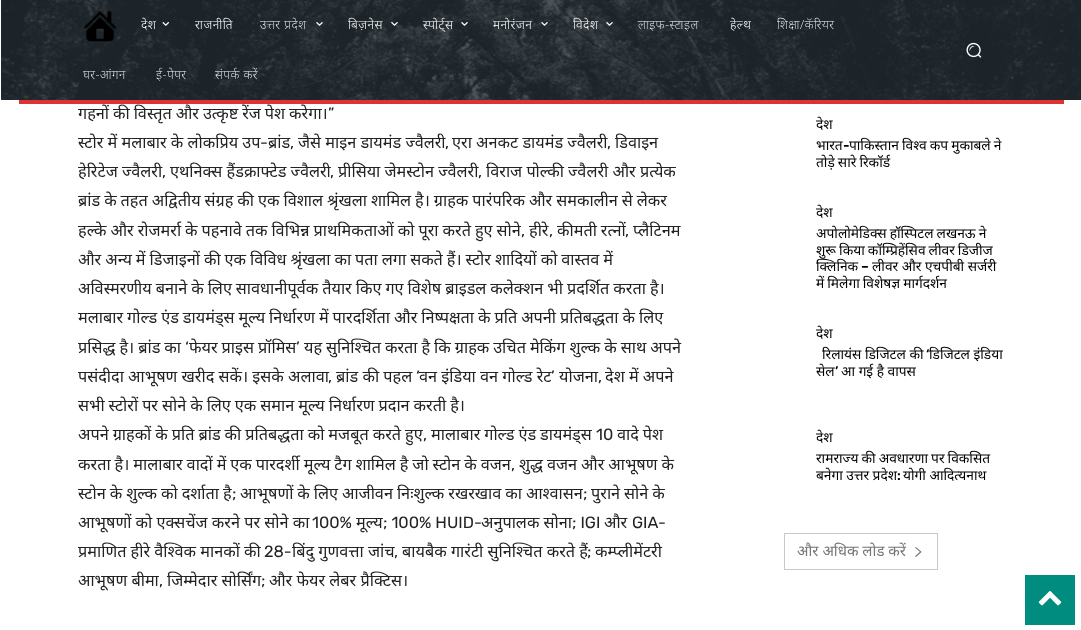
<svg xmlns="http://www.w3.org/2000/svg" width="1081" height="630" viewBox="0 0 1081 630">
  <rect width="100%" height="100%" fill="rgb(255,255,255)"/>
  <rect x="1" y="0" width="1080" height="100" fill="rgb(35,45,53)"/>
  <image x="1" y="0" width="1080" height="100" href="pic1.png"/>
  <image x="83" y="11" width="34" height="31" href="pic2.png"/>
  <text x="141" y="29" font-family="Noto Sans" font-size="12.5" font-weight="300" letter-spacing="0.5" fill="rgb(255,255,255)">देश</text>
  <image x="162" y="22" width="7" height="4" href="pic3.png"/>
  <text x="195" y="29" font-family="Noto Sans" font-size="12.5" font-weight="300" letter-spacing="0.5" fill="rgb(255,255,255)">राजनीति</text>
  <text x="260" y="29" font-family="Noto Sans" font-size="12.5" font-weight="200" letter-spacing="0.5" fill="rgb(255,255,255)">उत्तर प्रदेश</text>
  <image x="316" y="22" width="7" height="4" href="pic4.png"/>
  <text x="348" y="29" font-family="Noto Sans" font-size="12.5" font-weight="300" letter-spacing="0.5" fill="rgb(255,255,255)">बिज़नेस</text>
  <image x="391" y="22" width="7" height="4" href="pic5.png"/>
  <text x="423" y="29" font-family="Noto Sans" font-size="12.5" font-weight="300" letter-spacing="0.5" fill="rgb(255,255,255)">स्पोर्ट्स</text>
  <image x="461" y="22" width="7" height="4" href="pic6.png"/>
  <text x="493" y="29" font-family="Noto Sans" font-size="12.5" font-weight="300" letter-spacing="0.5" fill="rgb(255,255,255)">मनोरंजन</text>
  <image x="541" y="22" width="7" height="4" href="pic7.png"/>
  <text x="573" y="29" font-family="Noto Sans" font-size="12.5" font-weight="300" letter-spacing="0.5" fill="rgb(255,255,255)">विदेश</text>
  <image x="606" y="22" width="7" height="4" href="pic8.png"/>
  <text x="638" y="29" font-family="Noto Sans" font-size="12.5" font-weight="200" letter-spacing="0.5" fill="rgb(255,255,255)">लाइफ-स्टाइल</text>
  <text x="730" y="29" font-family="Noto Sans" font-size="12.5" font-weight="300" letter-spacing="0.5" fill="rgb(255,255,255)">हेल्थ</text>
  <g font-family="Noto Sans" font-size="12.5" font-weight="200" letter-spacing="0.5" fill="rgb(255,255,255)">
    <text x="777" y="29">शिक्षा/कॅरियर</text>
    <text x="83" y="79">घर-आंगन</text>
    <text x="156" y="79">ई-पेपर</text>
    <text x="215" y="79">संपर्क करें</text>
  </g>
  <image x="966" y="42" width="16" height="16" href="pic9.png"/>
  <rect x="19" y="100" width="1045" height="4" fill="rgb(221,51,51)"/>
  <text x="78" y="119" word-spacing="-0.25" font-family="Noto Sans" font-size="16.25" fill="rgb(34,34,34)">गहनों की विस्तृत और उत्कृष्ट रेंज पेश करेगा।</text>
  <text x="328" y="119" font-family="Rubik" font-size="16.25" fill="rgb(34,34,34)">”</text>
  <text x="78" y="148" font-family="Noto Sans" font-size="16.25" fill="rgb(34,34,34)">स्टोर में मलाबार के लोकप्रिय उप</text>
  <text x="260" y="148" font-family="Rubik" font-size="16.25" fill="rgb(34,34,34)">-</text>
  <text x="268" y="148" font-family="Noto Sans" font-size="16.25" fill="rgb(34,34,34)">ब्रांड</text>
  <text x="290" y="148" font-family="Rubik" font-size="16.25" fill="rgb(34,34,34)">,</text>
  <g font-family="Noto Sans" font-size="16.25" fill="rgb(34,34,34)">
    <text x="298" y="148">जैसे माइन डायमंड ज्वैलरी</text>
    <text x="452" y="148">एरा अनकट डायमंड ज्वैलरी</text>
    <text x="615" y="148">डिवाइन</text>
  </g>
  <g font-family="Rubik" font-size="16.25" fill="rgb(34,34,34)">
    <text x="445" y="148">,</text>
    <text x="607" y="148">,</text>
  </g>
  <text x="78" y="177" font-family="Noto Sans" font-size="16.25" fill="rgb(34,34,34)">हेरिटेज ज्वैलरी</text>
  <text x="162" y="177" font-family="Rubik" font-size="16.25" fill="rgb(34,34,34)">,</text>
  <text x="170" y="177" font-family="Noto Sans" font-size="16.25" fill="rgb(34,34,34)">एथनिक्स हैंडक्राफ्टेड ज्वैलरी</text>
  <text x="330" y="177" font-family="Rubik" font-size="16.25" fill="rgb(34,34,34)">,</text>
  <text x="338" y="177" font-family="Noto Sans" font-size="16.25" fill="rgb(34,34,34)">प्रीसिया जेमस्टोन ज्वैलरी</text>
  <text x="478" y="177" font-family="Rubik" font-size="16.25" fill="rgb(34,34,34)">,</text>
  <g font-family="Noto Sans" font-size="16.25" fill="rgb(34,34,34)">
    <text x="486" y="177">विराज पोल्की ज्वैलरी और प्रत्येक</text>
    <text>
      <tspan x="78" y="206" word-spacing="-0.25">ब्रांड के तहत अद्वितीय संग्रह की एक विशाल श्रृंखला शामिल है। ग्राहक पारंपरिक और समकालीन से लेकर</tspan>
      <tspan x="78" y="236" word-spacing="-0.25">हल्के और रोजमर्रा के पहनावे तक विभिन्न प्राथमिकताओं को पूरा करते हुए सोने</tspan>
    </text>
  </g>
  <text x="521" y="236" font-family="Rubik" font-size="16.25" fill="rgb(34,34,34)">,</text>
  <text x="529" y="236" font-family="Noto Sans" font-size="16.25" fill="rgb(34,34,34)">हीरे</text>
  <text x="549" y="236" font-family="Rubik" font-size="16.25" fill="rgb(34,34,34)">,</text>
  <g font-family="Noto Sans" font-size="16.25" fill="rgb(34,34,34)">
    <text x="557" y="236" word-spacing="-0.25">कीमती रत्नों</text>
    <text x="633" y="236">प्लैटिनम</text>
  </g>
  <text x="625" y="236" font-family="Rubik" font-size="16.25" fill="rgb(34,34,34)">,</text>
  <g font-family="Noto Sans" font-size="16.25" fill="rgb(34,34,34)">
    <text>
      <tspan x="78" y="265" word-spacing="-0.25">और अन्य में डिजाइनों की एक विविध श्रृंखला का पता लगा सकते हैं। स्टोर शादियों को वास्तव में</tspan>
      <tspan x="78" y="294" word-spacing="-0.25">अविस्मरणीय बनाने के लिए सावधानीपूर्वक तैयार किए गए विशेष ब्राइडल कलेक्शन भी प्रदर्शित करता है।</tspan>
      <tspan x="78" y="323" word-spacing="-0.25">मलाबार गोल्ड एंड डायमंड्स मूल्य निर्धारण में पारदर्शिता और निष्पक्षता के प्रति अपनी प्रतिबद्धता के लिए</tspan>
      <tspan x="78" y="353" word-spacing="-0.25">प्रसिद्ध है। ब्रांड का</tspan>
    </text>
  </g>
  <text x="185" y="353" font-family="Rubik" font-size="16.25" fill="rgb(34,34,34)">‘</text>
  <g font-family="Noto Sans" font-size="16.25" fill="rgb(34,34,34)">
    <text x="189" y="353" word-spacing="-0.25">फेयर प्राइस प्रॉमिस</text>
    <text x="304" y="353" word-spacing="-0.25">यह सुनिश्चित करता है कि ग्राहक उचित मेकिंग शुल्क के साथ अपने</text>
  </g>
  <text x="296" y="353" font-family="Rubik" font-size="16.25" fill="rgb(34,34,34)">’</text>
  <g font-family="Noto Sans" font-size="16.25" fill="rgb(34,34,34)">
    <text x="78" y="382">पसंदीदा आभूषण खरीद सकें। इसके अलावा</text>
    <text x="336" y="382">ब्रांड की पहल</text>
  </g>
  <text x="416" y="382" font-family="Rubik" font-size="16.25" fill="rgb(34,34,34)">‘</text>
  <text x="419" y="382" font-family="Noto Sans" font-size="16.25" fill="rgb(34,34,34)">वन इंडिया वन गोल्ड रेट</text>
  <text x="551" y="382" font-family="Rubik" font-size="16.25" fill="rgb(34,34,34)">’</text>
  <text x="559" y="382" font-family="Noto Sans" font-size="16.25" fill="rgb(34,34,34)">योजना</text>
  <text x="598" y="382" font-family="Rubik" font-size="16.25" fill="rgb(34,34,34)">,</text>
  <text x="605" y="382" font-family="Noto Sans" font-size="16.25" fill="rgb(34,34,34)">देश में अपने</text>
  <text x="328" y="382" font-family="Rubik" font-size="16.25" fill="rgb(34,34,34)">,</text>
  <g font-family="Noto Sans" font-size="16.25" fill="rgb(34,34,34)">
    <text>
      <tspan x="78" y="411" word-spacing="-0.25">सभी स्टोरों पर सोने के लिए एक समान मूल्य निर्धारण प्रदान करती है।</tspan>
      <tspan x="78" y="440" word-spacing="-0.25">अपने ग्राहकों के प्रति ब्रांड की प्रतिबद्धता को मजबूत करते हुए</tspan>
    </text>
  </g>
  <text x="423" y="440" font-family="Rubik" font-size="16.25" fill="rgb(34,34,34)">,</text>
  <text x="431" y="440" word-spacing="-0.25" font-family="Noto Sans" font-size="16.25" fill="rgb(34,34,34)">मालाबार गोल्ड एंड डायमंड्स</text>
  <text x="596" y="440" font-family="Rubik" font-size="16.25" fill="rgb(34,34,34)">10</text>
  <g font-family="Noto Sans" font-size="16.25" fill="rgb(34,34,34)">
    <text x="617" y="440" word-spacing="-0.25">वादे पेश</text>
    <text x="78" y="470" word-spacing="-0.25">करता है। मालाबार वादों में एक पारदर्शी मूल्य टैग शामिल है जो स्टोन के वजन</text>
  </g>
  <text x="511" y="470" font-family="Rubik" font-size="16.25" fill="rgb(34,34,34)">,</text>
  <g font-family="Noto Sans" font-size="16.25" fill="rgb(34,34,34)">
    <text x="519" y="470" word-spacing="-0.25">शुद्ध वजन और आभूषण के</text>
    <text x="78" y="499" word-spacing="-0.25">स्टोन के शुल्क को दर्शाता है</text>
  </g>
  <text x="232" y="499" font-family="Rubik" font-size="16.25" fill="rgb(34,34,34)">;</text>
  <text x="240" y="499" word-spacing="-0.25" font-family="Noto Sans" font-size="16.25" fill="rgb(34,34,34)">आभूषणों के लिए आजीवन निःशुल्क रखरखाव का आश्वासन</text>
  <text x="583" y="499" font-family="Rubik" font-size="16.25" fill="rgb(34,34,34)">;</text>
  <g font-family="Noto Sans" font-size="16.25" fill="rgb(34,34,34)">
    <text x="591" y="499" word-spacing="-0.25">पुराने सोने के</text>
    <text x="78" y="528">आभूषणों को एक्सचेंज करने पर सोने का</text>
  </g>
  <text x="312" y="528" font-family="Rubik" font-size="16.25" fill="rgb(34,34,34)">100%</text>
  <text x="356" y="528" font-family="Noto Sans" font-size="16.25" fill="rgb(34,34,34)">मूल्य</text>
  <text x="383" y="528" font-family="Rubik" font-size="16.25" fill="rgb(34,34,34)">; 100% HUID-</text>
  <text x="481" y="528" font-family="Noto Sans" font-size="16.25" fill="rgb(34,34,34)">अनुपालक सोना</text>
  <text x="572" y="528" font-family="Rubik" font-size="16.25" fill="rgb(34,34,34)">; IGI</text>
  <text x="604" y="528" font-family="Noto Sans" font-size="16.25" fill="rgb(34,34,34)">और</text>
  <text x="632" y="528" font-family="Rubik" font-size="16.25" fill="rgb(34,34,34)">GIA-</text>
  <text x="78" y="557" font-family="Noto Sans" font-size="16.25" fill="rgb(34,34,34)">प्रमाणित हीरे वैश्विक मानकों की</text>
  <text x="264" y="557" font-family="Rubik" font-size="16.25" fill="rgb(34,34,34)">28-</text>
  <text x="292" y="557" font-family="Noto Sans" font-size="16.25" fill="rgb(34,34,34)">बिंदु गुणवत्ता जांच</text>
  <text x="394" y="557" font-family="Rubik" font-size="16.25" fill="rgb(34,34,34)">,</text>
  <text x="402" y="557" font-family="Noto Sans" font-size="16.25" fill="rgb(34,34,34)">बायबैक गारंटी सुनिश्चित करते हैं</text>
  <text x="587" y="557" font-family="Rubik" font-size="16.25" fill="rgb(34,34,34)">;</text>
  <g font-family="Noto Sans" font-size="16.25" fill="rgb(34,34,34)">
    <text x="595" y="557">कम्प्लीमेंटरी</text>
    <text x="78" y="586">आभूषण बीमा</text>
  </g>
  <text x="159" y="586" font-family="Rubik" font-size="16.25" fill="rgb(34,34,34)">,</text>
  <text x="167" y="586" font-family="Noto Sans" font-size="16.25" fill="rgb(34,34,34)">जिम्मेदार सोर्सिंग</text>
  <text x="261" y="586" font-family="Rubik" font-size="16.25" fill="rgb(34,34,34)">;</text>
  <text x="269" y="586" font-family="Noto Sans" font-size="16.25" fill="rgb(34,34,34)">और फेयर लेबर प्रैक्टिस।</text>
  <g font-family="Noto Sans" font-size="13.75" fill="rgb(0,0,0)">
    <text>
      <tspan x="816" y="129">देश</tspan>
      <tspan x="816" y="150">भारत</tspan>
    </text>
  </g>
  <text x="843" y="150" font-family="Rubik" font-size="13.75" font-weight="500" fill="rgb(0,0,0)">-</text>
  <g font-family="Noto Sans" font-size="13.75" fill="rgb(0,0,0)">
    <text x="849" y="150" word-spacing="-0.5">पाकिस्तान विश्व कप मुकाबले ने</text>
    <text x="816" y="167" word-spacing="-0.5">तोड़े सारे रिकॉर्ड</text>
    <text>
      <tspan x="816" y="217">देश</tspan>
      <tspan x="816" y="238" word-spacing="-0.5">अपोलोमेडिक्स हॉस्पिटल लखनऊ ने</tspan>
      <tspan x="816" y="255" word-spacing="-0.5">शुरू किया कॉम्प्रिहेंसिव लीवर डिजीज</tspan>
      <tspan x="816" y="271">क्लिनिक</tspan>
    </text>
  </g>
  <text x="861" y="271" font-family="Rubik" font-size="13.75" font-weight="500" fill="rgb(0,0,0)">–</text>
  <g font-family="Noto Sans" font-size="13.75" fill="rgb(0,0,0)">
    <text x="872" y="271">लीवर और एचपीबी सर्जरी</text>
    <text x="816" y="288" word-spacing="-0.5">में मिलेगा विशेषज्ञ मार्गदर्शन</text>
    <text x="816" y="338">देश</text>
    <text x="822" y="359">रिलायंस डिजिटल की</text>
  </g>
  <text x="926" y="359" font-family="Rubik" font-size="13.75" font-weight="500" fill="rgb(0,0,0)">‘</text>
  <g font-family="Noto Sans" font-size="13.75" fill="rgb(0,0,0)">
    <text x="929" y="359">डिजिटल इंडिया</text>
    <text x="816" y="376">सेल</text>
  </g>
  <text x="835" y="376" font-family="Rubik" font-size="13.75" font-weight="500" fill="rgb(0,0,0)">’</text>
  <g font-family="Noto Sans" font-size="13.75" fill="rgb(0,0,0)">
    <text x="841" y="376">आ गई है वापस</text>
    <text>
      <tspan x="816" y="442">देश</tspan>
      <tspan x="816" y="463" word-spacing="-0.5">रामराज्य की अवधारणा पर विकसित</tspan>
      <tspan x="816" y="480">बनेगा उत्तर प्रदेश</tspan>
    </text>
  </g>
  <text x="897" y="480" font-family="Rubik" font-size="13.75" font-weight="500" fill="rgb(0,0,0)">:</text>
  <text x="903" y="480" font-family="Noto Sans" font-size="13.75" fill="rgb(0,0,0)">योगी आदित्यनाथ</text>
  <rect x="784.5" y="533.5" width="153" height="36" fill="none" stroke="rgb(201,201,201)"/>
  <text x="797" y="556" font-family="Noto Sans" font-size="15" fill="rgb(118,118,118)">और अधिक लोड करें</text>
  <image x="915" y="547" width="7" height="10" href="pic10.png"/>
  <rect x="1025" y="575" width="50" height="50" fill="rgb(0,141,127)"/>
  <image x="1038" y="591" width="24" height="15" href="pic11.png"/>
</svg>
